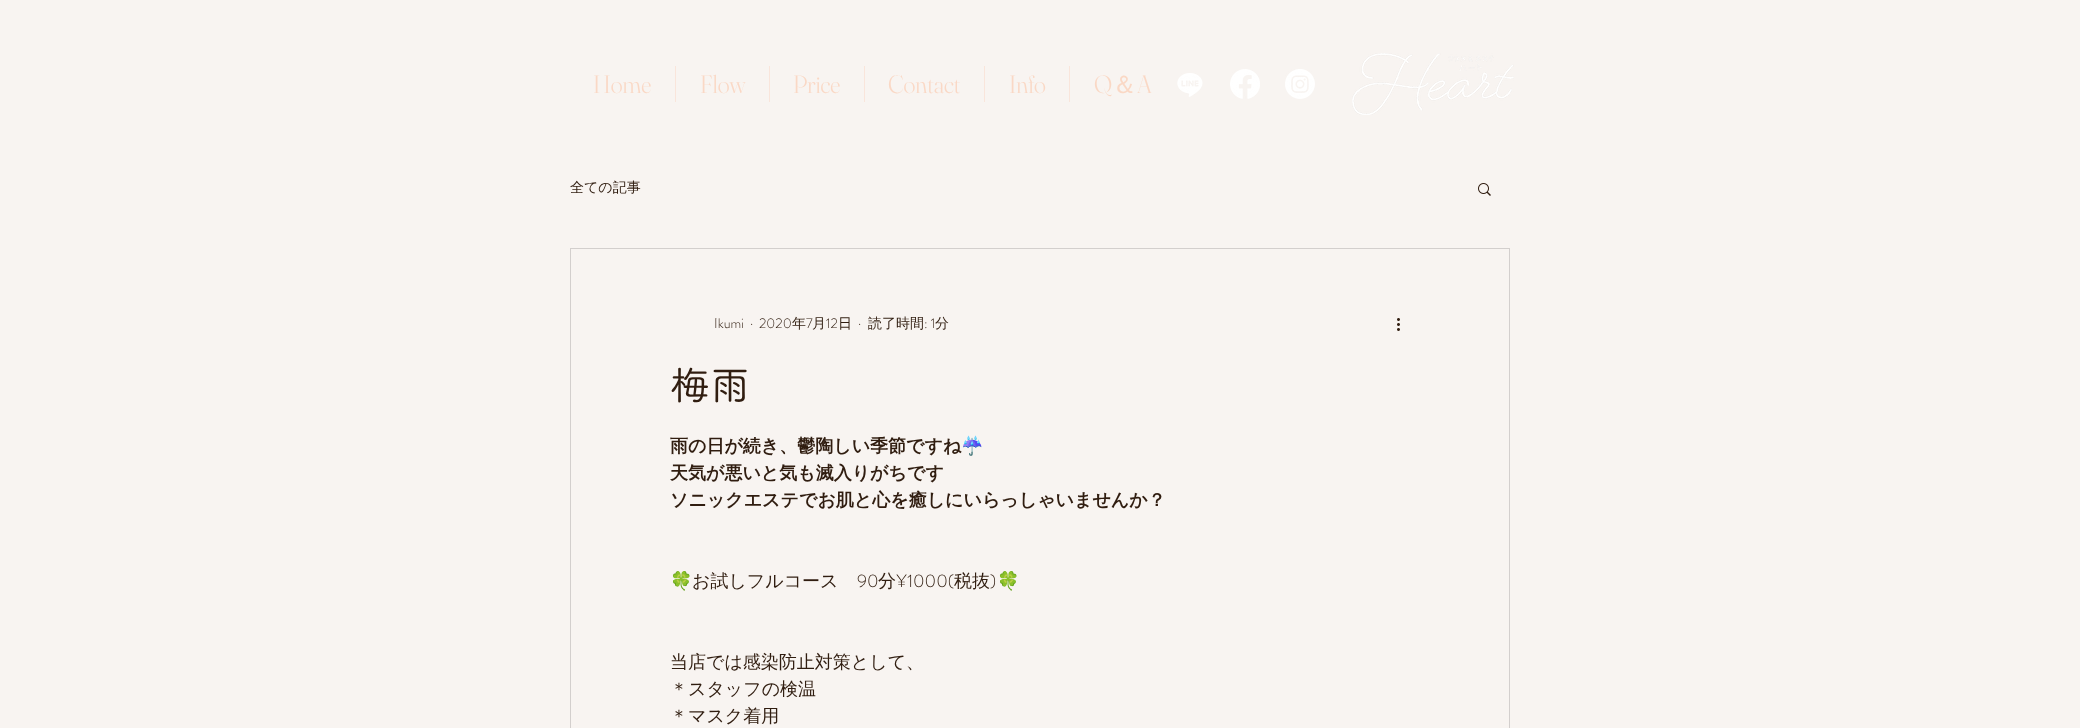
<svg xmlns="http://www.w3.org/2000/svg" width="2080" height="728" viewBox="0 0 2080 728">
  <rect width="100%" height="100%" fill="rgb(248,244,241)"/>
  <text x="593" y="93" font-family="Fraunces" font-size="25" font-weight="300" fill="rgb(250,216,197)">Home</text>
  <rect x="675" y="66" width="1" height="36" fill="rgb(249,229,219)"/>
  <text x="700" y="93" font-family="Fraunces" font-size="25" font-weight="300" fill="rgb(250,216,197)">Flow</text>
  <rect x="769" y="66" width="1" height="36" fill="rgb(249,229,219)"/>
  <text x="793" y="93" font-family="Fraunces" font-size="25" font-weight="300" fill="rgb(250,216,197)">Price</text>
  <rect x="864" y="66" width="1" height="36" fill="rgb(249,229,219)"/>
  <text x="888" y="93" font-family="Fraunces" font-size="25" font-weight="300" fill="rgb(250,216,197)">Contact</text>
  <rect x="984" y="66" width="1" height="36" fill="rgb(249,229,219)"/>
  <text x="1009" y="93" font-family="Fraunces" font-size="25" font-weight="300" fill="rgb(250,216,197)">Info</text>
  <rect x="1069" y="66" width="1" height="36" fill="rgb(249,229,219)"/>
  <text x="1094" y="93" font-family="Fraunces" font-size="25" font-weight="300" fill="rgb(250,216,197)">Q</text>
  <text x="1112" y="93" font-family="WenQuanYi Zen Hei" font-size="25" font-weight="500" fill="rgb(250,216,197)">＆</text>
  <text x="1137" y="93" font-family="Fraunces" font-size="25" font-weight="300" fill="rgb(250,216,197)">A</text>
  <image x="1177" y="73" width="26" height="24" href="pic1.png"/>
  <image x="1230" y="69" width="30" height="30" href="pic2.png"/>
  <image x="1285" y="69" width="30" height="30" href="pic3.png"/>
  <image x="1352" y="53" width="162" height="62" href="pic4.png"/>
  <text x="570" y="192" font-family="WenQuanYi Zen Hei" font-size="14" font-weight="500" fill="rgb(48,29,16)">全ての記事</text>
  <image x="1478" y="183" width="13" height="13" href="pic5.png"/>
  <rect x="570.5" y="248.5" width="939" height="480" fill="none" stroke="rgb(211,207,205)"/>
  <g font-family="'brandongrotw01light'" font-size="14" font-weight="300" fill="rgb(48,29,16)">
    <text x="714" y="328">Ikumi</text>
    <text x="750" y="328">·</text>
    <text x="759" y="328">2020</text>
  </g>
  <text x="792" y="328" font-family="WenQuanYi Zen Hei" font-size="14" font-weight="500" fill="rgb(48,29,16)">年</text>
  <text x="806" y="328" font-family="'brandongrotw01light'" font-size="14" font-weight="300" fill="rgb(48,29,16)">7</text>
  <text x="812" y="328" font-family="WenQuanYi Zen Hei" font-size="14" font-weight="500" fill="rgb(48,29,16)">月</text>
  <text x="826" y="328" font-family="'brandongrotw01light'" font-size="14" font-weight="300" fill="rgb(48,29,16)">12</text>
  <text x="838" y="328" font-family="WenQuanYi Zen Hei" font-size="14" font-weight="500" fill="rgb(48,29,16)">日</text>
  <text x="858" y="328" font-family="'brandongrotw01light'" font-size="14" font-weight="300" fill="rgb(48,29,16)">·</text>
  <text x="868" y="328" font-family="WenQuanYi Zen Hei" font-size="14" font-weight="500" fill="rgb(48,29,16)">読了時間</text>
  <text x="924" y="328" font-family="'brandongrotw01light'" font-size="14" font-weight="300" fill="rgb(48,29,16)">: 1</text>
  <text x="935" y="328" font-family="WenQuanYi Zen Hei" font-size="14" font-weight="500" fill="rgb(48,29,16)">分</text>
  <image x="1397" y="318" width="3" height="13" href="pic6.png"/>
  <text x="670" y="400" font-family="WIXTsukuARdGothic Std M" font-size="40" font-weight="500" fill="rgb(48,29,16)">梅雨</text>
  <text x="670" y="452" font-family="WenQuanYi Zen Hei" font-size="18" font-weight="bold" fill="rgb(48,29,16)">雨の日が続き、鬱陶しい季節ですね</text>
  <text x="961" y="452" font-family="Noto Color Emoji" font-size="18" font-weight="bold" fill="rgb(48,29,16)">☔️</text>
  <g font-family="WenQuanYi Zen Hei" font-size="18" font-weight="bold" fill="rgb(48,29,16)">
    <text>
      <tspan x="670" y="479">天気が悪いと気も滅入りがちです</tspan>
      <tspan x="670" y="506">ソニックエステでお肌と心を癒しにいらっしゃいませんか？</tspan>
    </text>
  </g>
  <text x="670" y="587" font-family="Noto Color Emoji" font-size="18" fill="rgb(48,29,16)">🍀</text>
  <text x="692" y="587" font-family="WenQuanYi Zen Hei" font-size="18" font-weight="500" fill="rgb(48,29,16)">お試しフルコース</text>
  <text x="857" y="587" font-family="'brandongrotw01light'" font-size="18" font-weight="300" fill="rgb(48,29,16)">90</text>
  <text x="878" y="587" font-family="WenQuanYi Zen Hei" font-size="18" font-weight="500" fill="rgb(48,29,16)">分</text>
  <text x="896" y="587" font-family="'brandongrotw01light'" font-size="18" font-weight="300" fill="rgb(48,29,16)">¥1000(</text>
  <text x="954" y="587" font-family="WenQuanYi Zen Hei" font-size="18" font-weight="500" fill="rgb(48,29,16)">税抜</text>
  <text x="990" y="587" font-family="'brandongrotw01light'" font-size="18" font-weight="300" fill="rgb(48,29,16)">)</text>
  <text x="997" y="587" font-family="Noto Color Emoji" font-size="18" fill="rgb(48,29,16)">🍀</text>
  <g font-family="WenQuanYi Zen Hei" font-size="18" font-weight="500" fill="rgb(48,29,16)">
    <text>
      <tspan x="670" y="668">当店では感染防止対策として、</tspan>
      <tspan x="670" y="695">＊スタッフの検温</tspan>
      <tspan x="670" y="722">＊マスク着用</tspan>
    </text>
  </g>
</svg>
